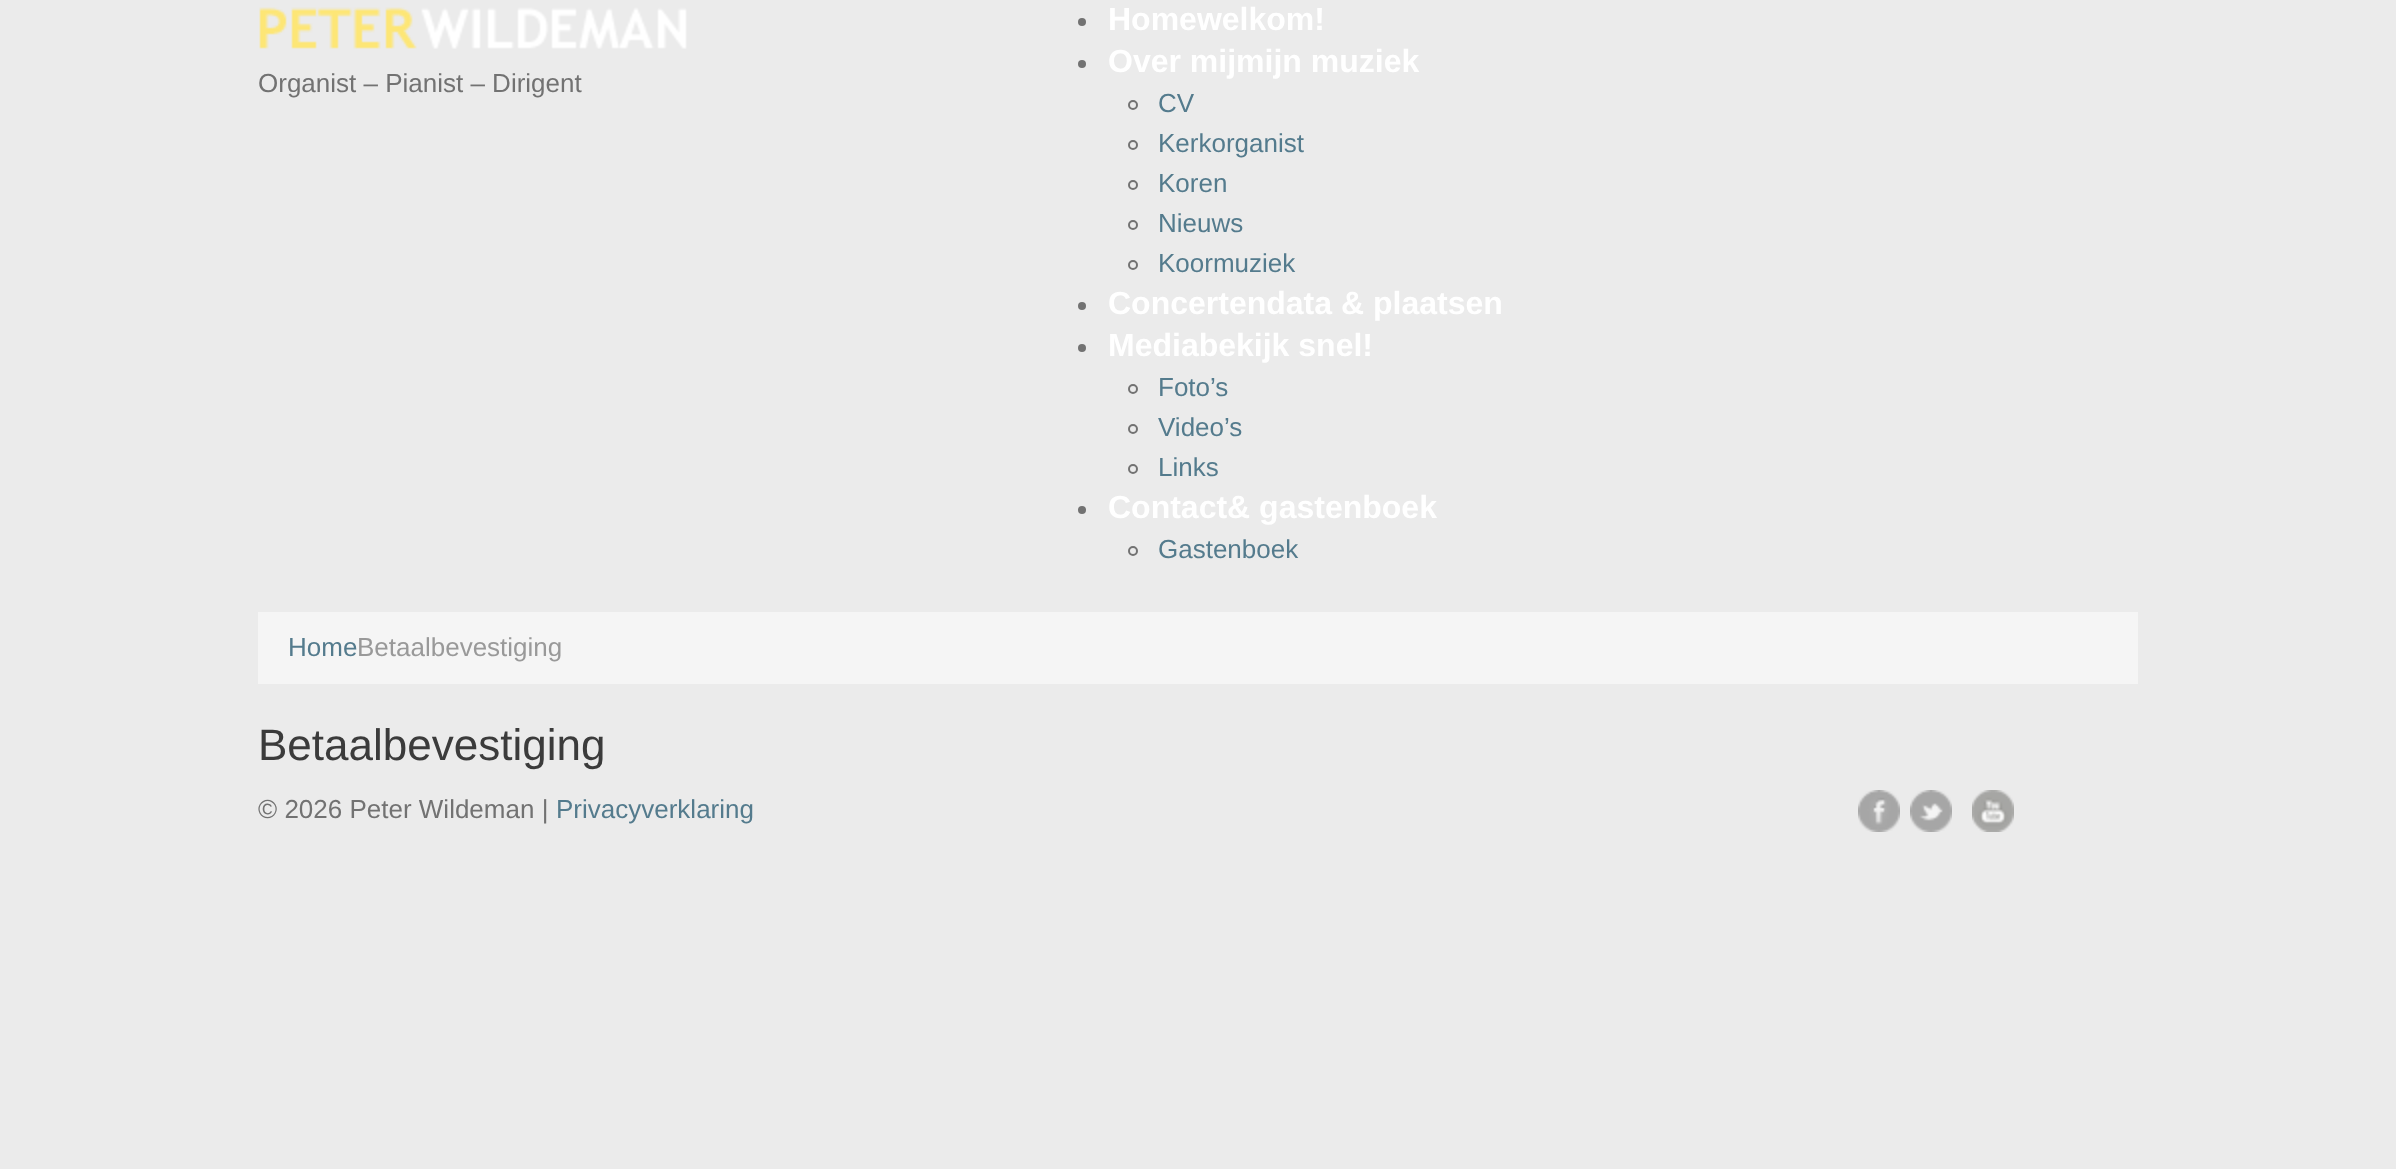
<svg xmlns="http://www.w3.org/2000/svg" width="2396" height="1169" viewBox="0 0 2396 1169">
  <rect width="100%" height="100%" fill="rgb(235,235,235)"/>
  <image x="259" y="7" width="428" height="42" href="pic1.png"/>
  <text x="258" y="92" font-family="Liberation Sans" font-size="26" fill="rgb(114,114,114)">Organist – Pianist – Dirigent</text>
  <circle cx="1082" cy="22" r="4" fill="rgb(114,114,114)"/>
  <text x="1108" y="30" font-family="Liberation Sans" font-size="32" font-weight="bold" fill="rgb(255,255,255)">Homewelkom!</text>
  <circle cx="1082" cy="64" r="4" fill="rgb(114,114,114)"/>
  <text x="1108" y="72" font-family="Liberation Sans" font-size="32" font-weight="bold" fill="rgb(255,255,255)">Over mijmijn muziek</text>
  <circle cx="1133" cy="105" r="4" fill="none" stroke="rgb(114,114,114)" stroke-width="2"/>
  <text x="1158" y="112" font-family="Liberation Sans" font-size="26" fill="rgb(84,123,141)">CV</text>
  <circle cx="1133" cy="145" r="4" fill="none" stroke="rgb(114,114,114)" stroke-width="2"/>
  <text x="1158" y="152" font-family="Liberation Sans" font-size="26" fill="rgb(84,123,141)">Kerkorganist</text>
  <circle cx="1133" cy="185" r="4" fill="none" stroke="rgb(114,114,114)" stroke-width="2"/>
  <text x="1158" y="192" font-family="Liberation Sans" font-size="26" fill="rgb(84,123,141)">Koren</text>
  <circle cx="1133" cy="225" r="4" fill="none" stroke="rgb(114,114,114)" stroke-width="2"/>
  <text x="1158" y="232" font-family="Liberation Sans" font-size="26" fill="rgb(84,123,141)">Nieuws</text>
  <circle cx="1133" cy="265" r="4" fill="none" stroke="rgb(114,114,114)" stroke-width="2"/>
  <text x="1158" y="272" font-family="Liberation Sans" font-size="26" fill="rgb(84,123,141)">Koormuziek</text>
  <circle cx="1082" cy="306" r="4" fill="rgb(114,114,114)"/>
  <text x="1108" y="314" font-family="Liberation Sans" font-size="32" font-weight="bold" fill="rgb(255,255,255)">Concertendata &amp; plaatsen</text>
  <circle cx="1082" cy="348" r="4" fill="rgb(114,114,114)"/>
  <text x="1108" y="356" font-family="Liberation Sans" font-size="32" font-weight="bold" fill="rgb(255,255,255)">Mediabekijk snel!</text>
  <circle cx="1133" cy="389" r="4" fill="none" stroke="rgb(114,114,114)" stroke-width="2"/>
  <text x="1158" y="396" font-family="Liberation Sans" font-size="26" fill="rgb(84,123,141)">Foto’s</text>
  <circle cx="1133" cy="429" r="4" fill="none" stroke="rgb(114,114,114)" stroke-width="2"/>
  <text x="1158" y="436" font-family="Liberation Sans" font-size="26" fill="rgb(84,123,141)">Video’s</text>
  <circle cx="1133" cy="469" r="4" fill="none" stroke="rgb(114,114,114)" stroke-width="2"/>
  <text x="1158" y="476" font-family="Liberation Sans" font-size="26" fill="rgb(84,123,141)">Links</text>
  <circle cx="1082" cy="510" r="4" fill="rgb(114,114,114)"/>
  <text x="1108" y="518" font-family="Liberation Sans" font-size="32" font-weight="bold" fill="rgb(255,255,255)">Contact&amp; gastenboek</text>
  <circle cx="1133" cy="551" r="4" fill="none" stroke="rgb(114,114,114)" stroke-width="2"/>
  <text x="1158" y="558" font-family="Liberation Sans" font-size="26" fill="rgb(84,123,141)">Gastenboek</text>
  <rect x="258" y="612" width="1880" height="72" fill="rgb(245,245,245)"/>
  <text x="288" y="656" font-family="Liberation Sans" font-size="26" fill="rgb(84,123,141)">Home</text>
  <text x="357" y="656" font-family="Liberation Sans" font-size="26" fill="rgb(153,153,153)">Betaalbevestiging</text>
  <text x="258" y="760" font-family="Liberation Sans" font-size="44" fill="rgb(59,59,59)">Betaalbevestiging</text>
  <text x="258" y="818" font-family="Liberation Sans" font-size="26" fill="rgb(114,114,114)">© 2026 Peter Wildeman |</text>
  <text x="556" y="818" font-family="Liberation Sans" font-size="26" fill="rgb(84,123,141)">Privacyverklaring</text>
  <image x="1858" y="790" width="42" height="42" href="pic2.png"/>
  <image x="1910" y="790" width="42" height="42" href="pic3.png"/>
  <image x="1972" y="790" width="42" height="42" href="pic4.png"/>
</svg>
